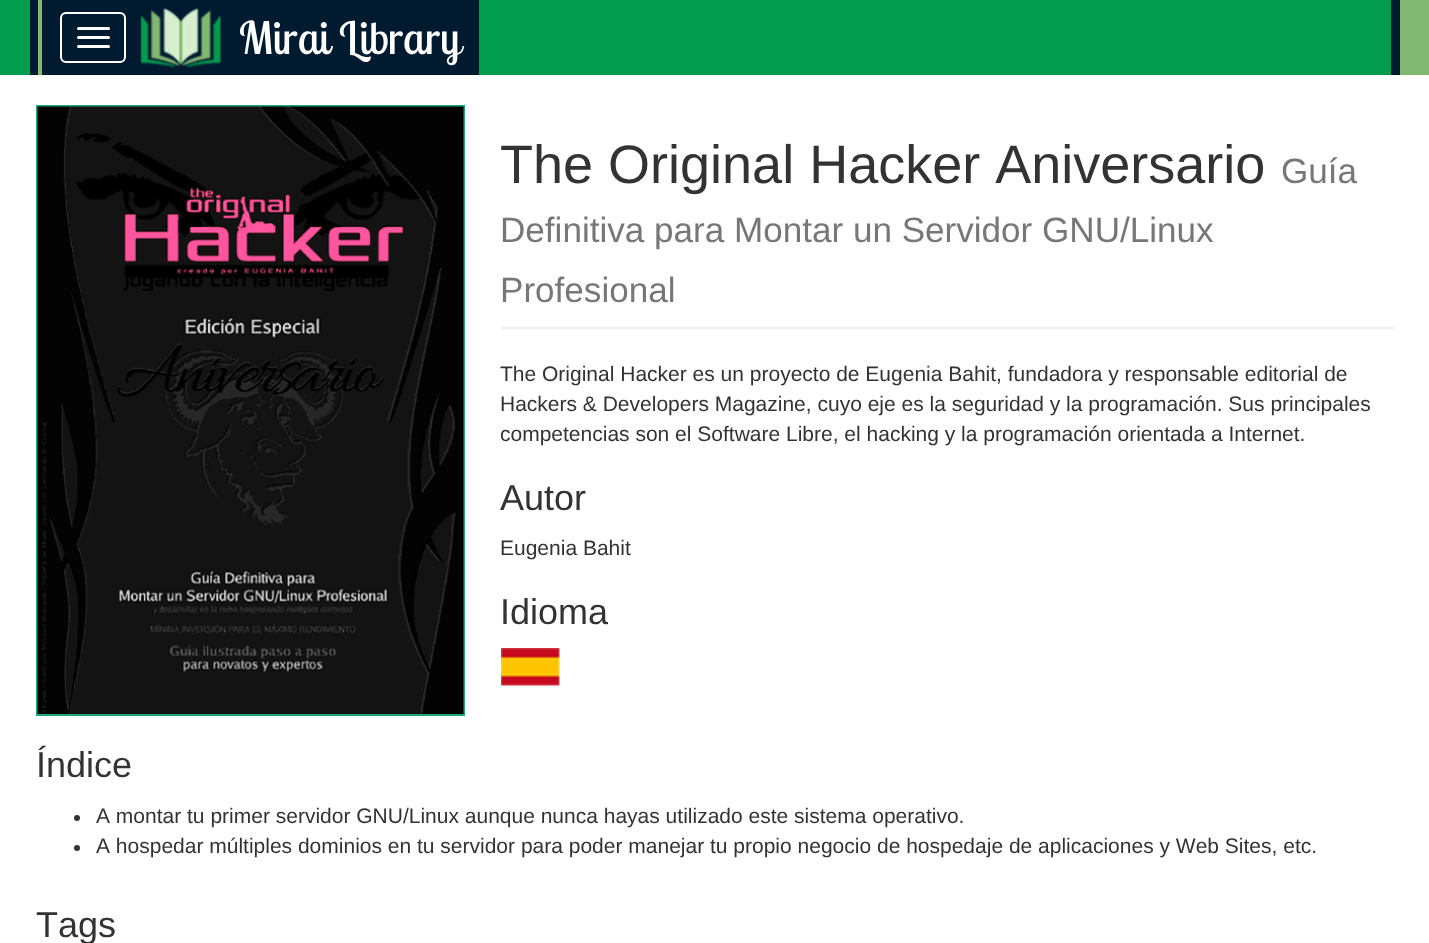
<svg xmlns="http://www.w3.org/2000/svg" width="1429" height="943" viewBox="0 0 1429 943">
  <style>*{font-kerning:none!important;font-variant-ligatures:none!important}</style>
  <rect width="100%" height="100%" fill="rgb(255,255,255)"/>
  <rect x="479" y="0" width="912" height="75" fill="rgb(0,157,79)"/>
  <rect x="1400" y="0" width="29" height="75" fill="rgb(129,184,114)"/>
  <rect x="0" y="0" width="30" height="75" fill="rgb(0,157,79)"/>
  <rect x="1391" y="0" width="9" height="75" fill="rgb(0,27,48)"/>
  <rect x="30" y="0" width="8" height="75" fill="rgb(0,27,48)"/>
  <rect x="42" y="0" width="437" height="75" fill="rgb(0,27,48)"/>
  <rect x="38" y="0" width="4" height="75" fill="rgb(129,184,114)"/>
  <rect x="61" y="13" width="64" height="49" rx="5" fill="none" stroke="rgb(255,255,255)" stroke-width="2"/>
  <rect x="77" y="27" width="33" height="3" rx="1.5" fill="rgb(255,255,255)"/>
  <rect x="77" y="36" width="33" height="3" rx="1.5" fill="rgb(255,255,255)"/>
  <rect x="77" y="45" width="33" height="3" rx="1.5" fill="rgb(255,255,255)"/>
  <image x="140" y="8" width="82" height="60" href="pic1.png"/>
  <text x="239" y="54" font-family="Lobster Two" font-size="45" fill="rgb(255,255,255)">Mirai Library</text>
  <rect x="37" y="106" width="427" height="609" fill="none" stroke="rgb(31,166,122)" stroke-width="2"/>
  <image x="37" y="106" width="427" height="608" href="pic2.png"/>
  <rect x="501" y="327" width="893" height="2" fill="rgb(238,238,238)"/>
  <text x="500" y="183" font-family="Liberation Sans" font-size="54" fill="rgb(51,51,51)">The Original Hacker Aniversario</text>
  <g font-family="Liberation Sans" font-size="35.1" fill="rgb(119,119,119)">
    <text x="1281" y="183">Guía</text>
    <text>
      <tspan x="500" y="242">Definitiva para Montar un Servidor GNU/Linux</tspan>
      <tspan x="500" y="302">Profesional</tspan>
    </text>
  </g>
  <g font-family="Liberation Sans" font-size="21" fill="rgb(51,51,51)">
    <text>
      <tspan x="500" y="381">The Original Hacker es un proyecto de Eugenia Bahit, fundadora y responsable editorial de</tspan>
      <tspan x="500" y="411">Hackers &amp; Developers Magazine, cuyo eje es la seguridad y la programación. Sus principales</tspan>
      <tspan x="500" y="441">competencias son el Software Libre, el hacking y la programación orientada a Internet.</tspan>
    </text>
  </g>
  <text x="500" y="510" font-family="Liberation Sans" font-size="36" fill="rgb(51,51,51)">Autor</text>
  <text x="500" y="555" font-family="Liberation Sans" font-size="21" fill="rgb(51,51,51)">Eugenia Bahit</text>
  <text x="500" y="624" font-family="Liberation Sans" font-size="36" fill="rgb(51,51,51)">Idioma</text>
  <image x="501" y="648" width="59" height="38" href="pic3.png"/>
  <text x="36" y="777" font-family="Liberation Sans" font-size="36" fill="rgb(51,51,51)">Índice</text>
  <circle cx="77" cy="818" r="3" fill="rgb(51,51,51)"/>
  <text x="96" y="823" font-family="Liberation Sans" font-size="21" fill="rgb(51,51,51)">A montar tu primer servidor GNU/Linux aunque nunca hayas utilizado este sistema operativo.</text>
  <circle cx="77" cy="848" r="3" fill="rgb(51,51,51)"/>
  <text x="96" y="853" font-family="Liberation Sans" font-size="21" fill="rgb(51,51,51)">A hospedar múltiples dominios en tu servidor para poder manejar tu propio negocio de hospedaje de aplicaciones y Web Sites, etc.</text>
  <text x="36" y="937" font-family="Liberation Sans" font-size="36" fill="rgb(51,51,51)">Tags</text>
</svg>
